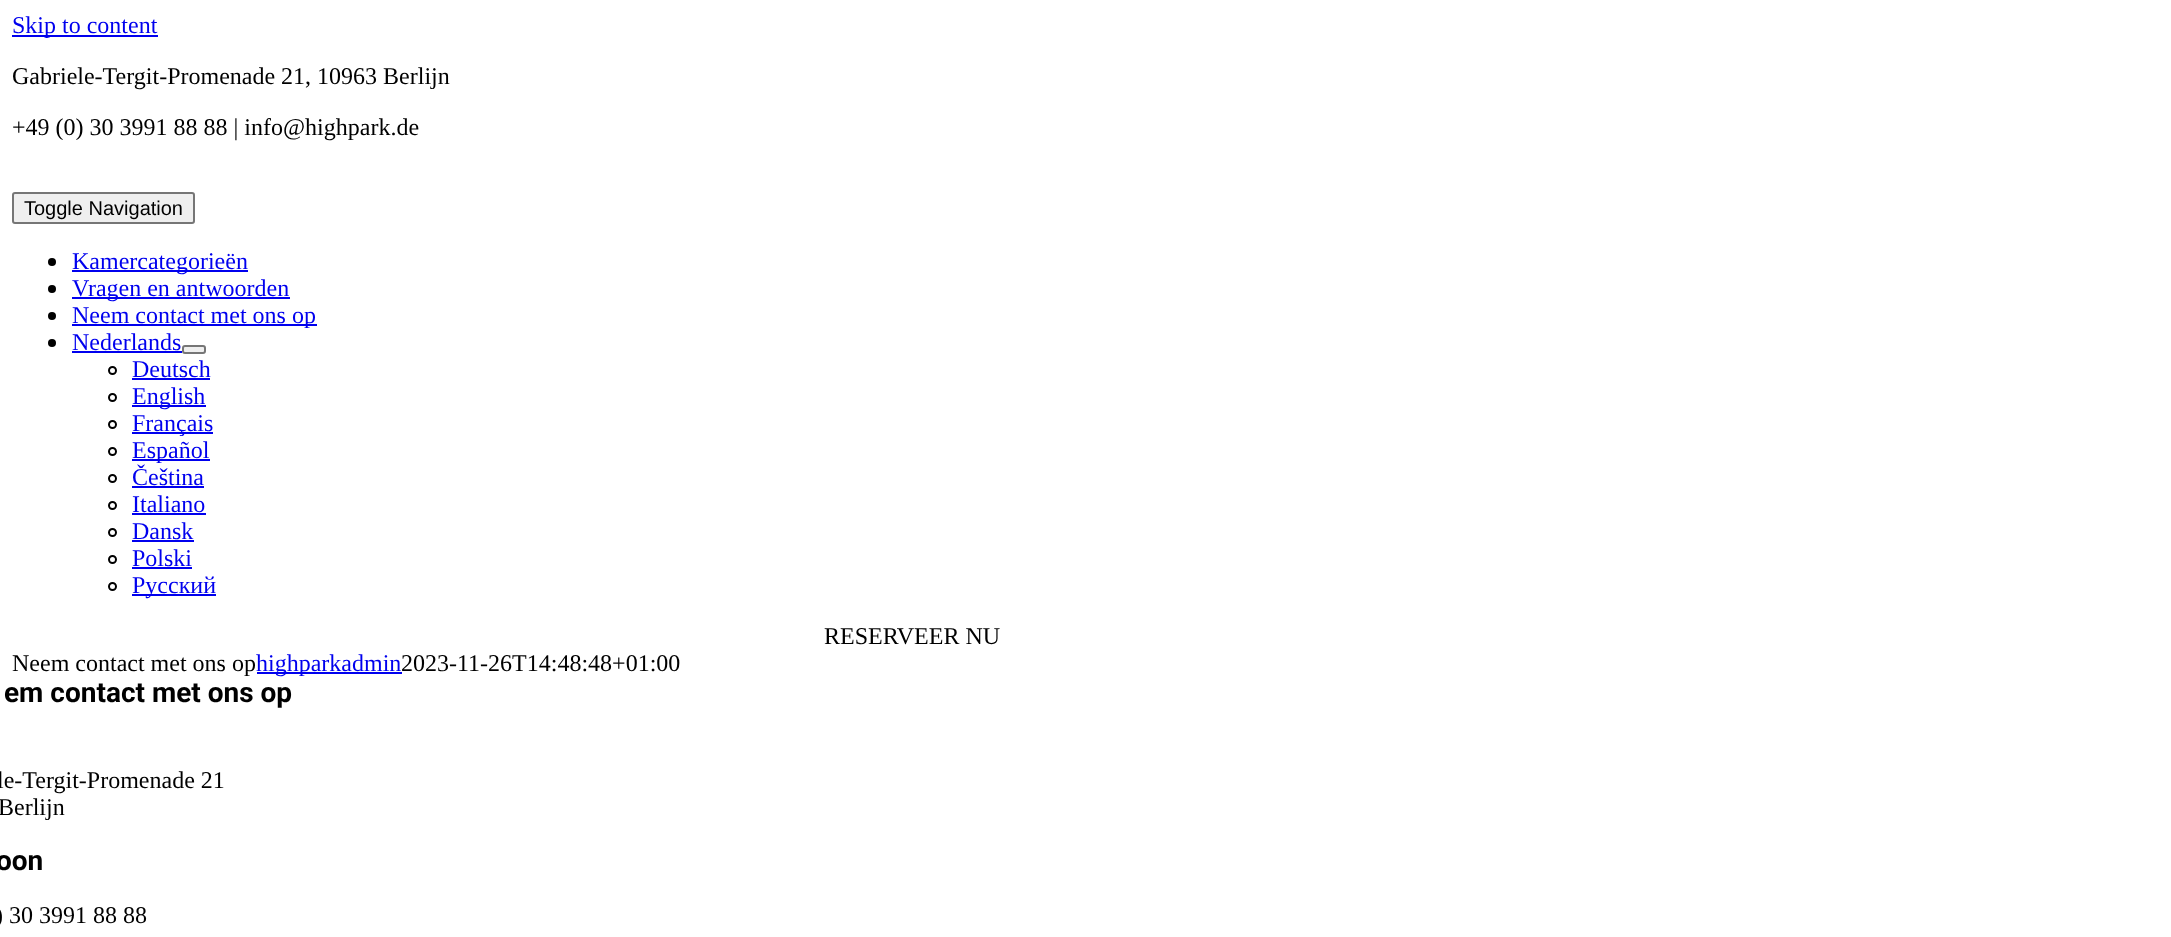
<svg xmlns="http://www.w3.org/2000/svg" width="2171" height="937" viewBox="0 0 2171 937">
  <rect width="100%" height="100%" fill="rgb(255,255,255)"/>
  <rect x="12" y="35" width="146" height="2" fill="rgb(0,0,238)"/>
  <text x="12" y="33" font-family="Liberation Serif" font-size="24" fill="rgb(0,0,238)">Skip to content</text>
  <g font-family="Liberation Serif" font-size="24" fill="rgb(0,0,0)">
    <text x="12" y="84">Gabriele-Tergit-Promenade 21, 10963 Berlijn</text>
    <text x="12" y="135">+49 (0) 30 3991 88 88 | info@highpark.de</text>
  </g>
  <rect x="13" y="193" width="181" height="30" rx="2" fill="rgb(239,239,239)" stroke="rgb(118,118,118)" stroke-width="2"/>
  <text x="24" y="215" font-family="Liberation Sans" font-size="20" fill="rgb(0,0,0)">Toggle Navigation</text>
  <circle cx="52" cy="262" r="4" fill="rgb(0,0,0)"/>
  <rect x="72" y="270" width="176" height="2" fill="rgb(0,0,238)"/>
  <text x="72" y="269" font-family="Liberation Serif" font-size="24" fill="rgb(0,0,238)">Kamercategorieën</text>
  <circle cx="52" cy="289" r="4" fill="rgb(0,0,0)"/>
  <rect x="72" y="297" width="218" height="2" fill="rgb(0,0,238)"/>
  <text x="72" y="296" font-family="Liberation Serif" font-size="24" fill="rgb(0,0,238)">Vragen en antwoorden</text>
  <circle cx="52" cy="316" r="4" fill="rgb(0,0,0)"/>
  <rect x="72" y="324" width="245" height="2" fill="rgb(0,0,238)"/>
  <text x="72" y="323" font-family="Liberation Serif" font-size="24" fill="rgb(0,0,238)">Neem contact met ons op</text>
  <circle cx="52" cy="343" r="4" fill="rgb(0,0,0)"/>
  <text x="72" y="350" font-family="Liberation Serif" font-size="24" fill="rgb(0,0,238)">Nederlands</text>
  <rect x="72" y="351" width="110" height="2" fill="rgb(0,0,238)"/>
  <rect x="183" y="346" width="22" height="7" rx="2" fill="rgb(239,239,239)" stroke="rgb(118,118,118)" stroke-width="2"/>
  <circle cx="112.5" cy="370.5" r="3.5" fill="none" stroke="rgb(0,0,0)" stroke-width="2"/>
  <text x="132" y="377" font-family="Liberation Serif" font-size="24" fill="rgb(0,0,238)">Deutsch</text>
  <rect x="132" y="378" width="78" height="2" fill="rgb(0,0,238)"/>
  <circle cx="112.5" cy="397.5" r="3.5" fill="none" stroke="rgb(0,0,0)" stroke-width="2"/>
  <rect x="132" y="405" width="74" height="2" fill="rgb(0,0,238)"/>
  <text x="132" y="404" font-family="Liberation Serif" font-size="24" fill="rgb(0,0,238)">English</text>
  <circle cx="112.5" cy="424.5" r="3.5" fill="none" stroke="rgb(0,0,0)" stroke-width="2"/>
  <rect x="132" y="432" width="81" height="2" fill="rgb(0,0,238)"/>
  <text x="132" y="431" font-family="Liberation Serif" font-size="24" fill="rgb(0,0,238)">Français</text>
  <circle cx="112.5" cy="451.5" r="3.5" fill="none" stroke="rgb(0,0,0)" stroke-width="2"/>
  <rect x="132" y="459" width="78" height="2" fill="rgb(0,0,238)"/>
  <text x="132" y="458" font-family="Liberation Serif" font-size="24" fill="rgb(0,0,238)">Español</text>
  <circle cx="112.5" cy="478.5" r="3.5" fill="none" stroke="rgb(0,0,0)" stroke-width="2"/>
  <text x="132" y="485" font-family="Liberation Serif" font-size="24" fill="rgb(0,0,238)">Čeština</text>
  <rect x="132" y="486" width="72" height="2" fill="rgb(0,0,238)"/>
  <circle cx="112.5" cy="505.5" r="3.5" fill="none" stroke="rgb(0,0,0)" stroke-width="2"/>
  <text x="132" y="512" font-family="Liberation Serif" font-size="24" fill="rgb(0,0,238)">Italiano</text>
  <rect x="132" y="513" width="74" height="2" fill="rgb(0,0,238)"/>
  <circle cx="112.5" cy="532.5" r="3.5" fill="none" stroke="rgb(0,0,0)" stroke-width="2"/>
  <text x="132" y="539" font-family="Liberation Serif" font-size="24" fill="rgb(0,0,238)">Dansk</text>
  <rect x="132" y="540" width="62" height="2" fill="rgb(0,0,238)"/>
  <circle cx="112.5" cy="559.5" r="3.5" fill="none" stroke="rgb(0,0,0)" stroke-width="2"/>
  <text x="132" y="566" font-family="Liberation Serif" font-size="24" fill="rgb(0,0,238)">Polski</text>
  <rect x="132" y="567" width="60" height="2" fill="rgb(0,0,238)"/>
  <circle cx="112.5" cy="586.5" r="3.5" fill="none" stroke="rgb(0,0,0)" stroke-width="2"/>
  <rect x="132" y="594" width="84" height="2" fill="rgb(0,0,238)"/>
  <text x="132" y="593" font-family="Liberation Serif" font-size="24" fill="rgb(0,0,238)">Русский</text>
  <g font-family="Liberation Serif" font-size="24" fill="rgb(0,0,0)">
    <text x="824" y="644">RESERVEER NU</text>
    <text x="12" y="671">Neem contact met ons op</text>
  </g>
  <rect x="257" y="672" width="145" height="2" fill="rgb(0,0,238)"/>
  <text x="256" y="671" font-family="Liberation Serif" font-size="24" fill="rgb(0,0,238)">highparkadmin</text>
  <text x="401" y="671" font-family="Liberation Serif" font-size="24" fill="rgb(0,0,0)">2023-11-26T14:48:48+01:00</text>
  <text x="4" y="702" font-family="Roboto" font-size="28" font-weight="bold" fill="rgb(0,0,0)">em contact met ons op</text>
  <g font-family="Liberation Serif" font-size="24" fill="rgb(0,0,0)">
    <text x="-3" y="788">le-Tergit-Promenade 21</text>
    <text x="-2" y="815">Berlijn</text>
  </g>
  <text x="-4" y="870" font-family="Roboto" font-size="28" font-weight="bold" fill="rgb(0,0,0)">oon</text>
  <text x="-5" y="923" font-family="Liberation Serif" font-size="24" fill="rgb(0,0,0)">) 30 3991 88 88</text>
</svg>
